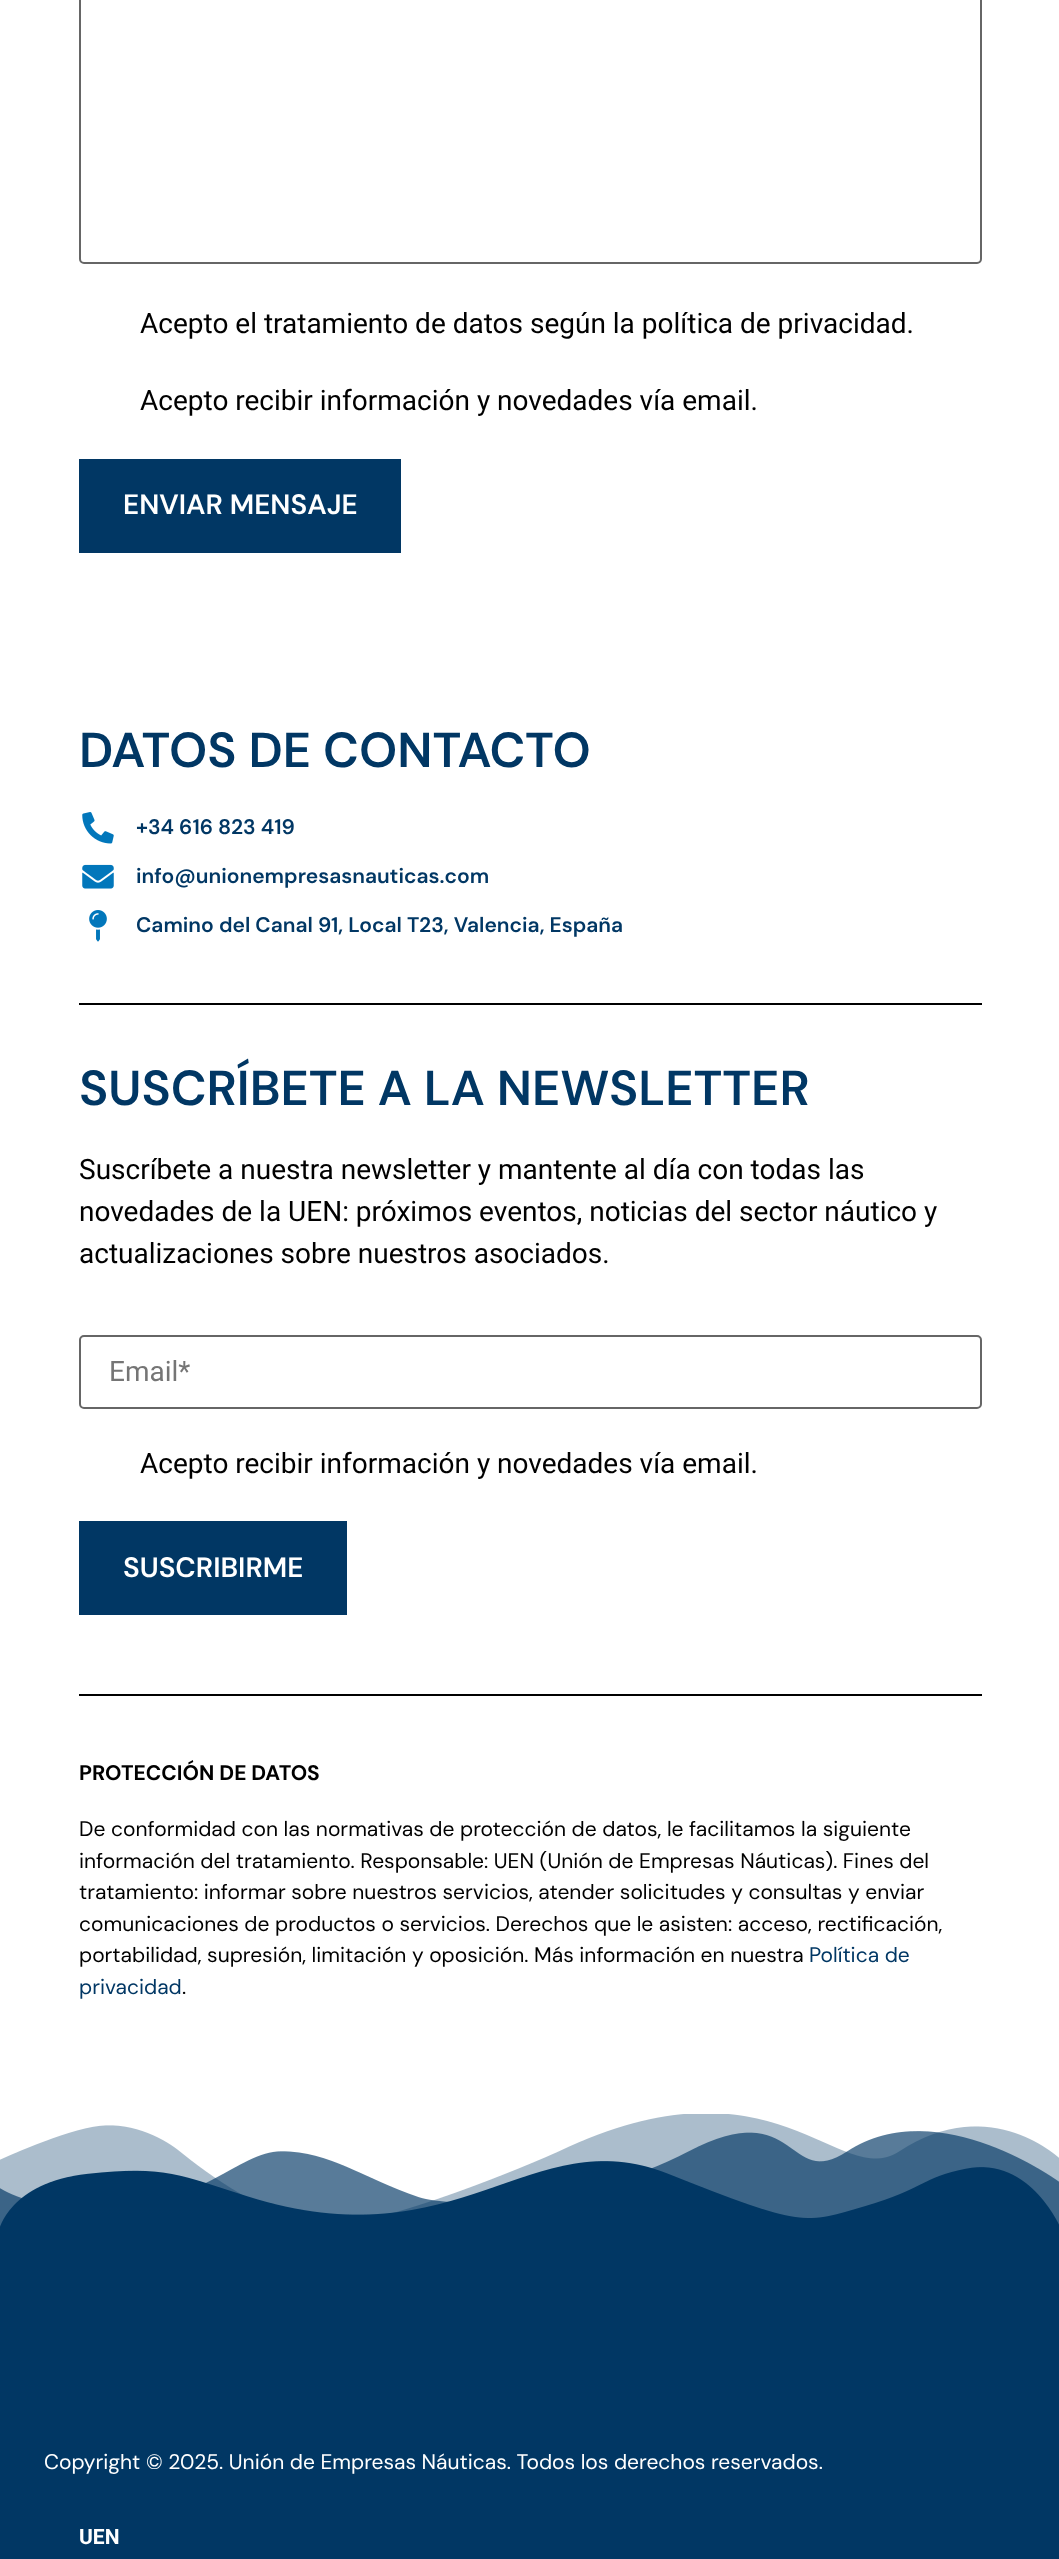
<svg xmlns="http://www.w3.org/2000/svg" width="1059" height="2559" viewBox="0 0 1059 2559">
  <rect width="100%" height="100%" fill="rgb(255,255,255)"/>
  <rect x="80" y="-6" width="901" height="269" rx="4" fill="none" stroke="rgb(102,102,102)" stroke-width="2"/>
  <g font-family="Roboto" font-size="28" fill="rgb(0,0,0)">
    <text x="140" y="333">Acepto el tratamiento de datos según la política de privacidad.</text>
    <text x="140" y="410">Acepto recibir información y novedades vía email.</text>
  </g>
  <rect x="79" y="459" width="322" height="94" fill="rgb(1,55,100)"/>
  <text x="123" y="514" font-family="DM Sans" font-size="28" font-weight="600" fill="rgb(255,255,255)">ENVIAR MENSAJE</text>
  <text x="79" y="767" font-family="DM Sans" font-size="49" font-weight="600" fill="rgb(1,55,100)">DATOS DE CONTACTO</text>
  <image x="82" y="812" width="32" height="32" href="pic1.png"/>
  <text x="136" y="834" font-family="DM Sans" font-size="21" font-weight="600" fill="rgb(1,55,100)">+34 616 823 419</text>
  <image x="82" y="864" width="32" height="25" href="pic2.png"/>
  <text x="136" y="883" font-family="DM Sans" font-size="21" font-weight="600" fill="rgb(1,55,100)">info@unionempresasnauticas.com</text>
  <image x="89" y="910" width="18" height="32" href="pic3.png"/>
  <text x="136" y="932" font-family="DM Sans" font-size="21" font-weight="600" fill="rgb(1,55,100)">Camino del Canal 91, Local T23, Valencia, España</text>
  <rect x="79" y="1003" width="903" height="2" fill="rgb(0,0,0)"/>
  <text x="79" y="1105" font-family="DM Sans" font-size="49" font-weight="600" fill="rgb(1,55,100)">SUSCRÍBETE A LA NEWSLETTER</text>
  <g font-family="Roboto" font-size="28" fill="rgb(0,0,0)">
    <text>
      <tspan x="79" y="1179">Suscríbete a nuestra newsletter y mantente al día con todas las</tspan>
      <tspan x="79" y="1221">novedades de la UEN: próximos eventos, noticias del sector náutico y</tspan>
      <tspan x="79" y="1263">actualizaciones sobre nuestros asociados.</tspan>
    </text>
  </g>
  <rect x="80" y="1336" width="901" height="72" rx="4" fill="none" stroke="rgb(102,102,102)" stroke-width="2"/>
  <text x="109" y="1381" font-family="Roboto" font-size="28" fill="rgb(117,117,117)">Email*</text>
  <text x="140" y="1473" font-family="Roboto" font-size="28" fill="rgb(0,0,0)">Acepto recibir información y novedades vía email.</text>
  <rect x="79" y="1521" width="268" height="94" fill="rgb(1,55,100)"/>
  <text x="123" y="1577" font-family="DM Sans" font-size="28" font-weight="600" fill="rgb(255,255,255)">SUSCRIBIRME</text>
  <rect x="79" y="1694" width="903" height="2" fill="rgb(0,0,0)"/>
  <text x="79" y="1780" font-family="DM Sans" font-size="21" font-weight="bold" fill="rgb(0,0,0)">PROTECCIÓN DE DATOS</text>
  <g font-family="DM Sans" font-size="21" fill="rgb(0,0,0)">
    <text>
      <tspan x="79" y="1836">De conformidad con las normativas de protección de datos, le facilitamos la siguiente</tspan>
      <tspan x="79" y="1868">información del tratamiento. Responsable: UEN (Unión de Empresas Náuticas). Fines del</tspan>
      <tspan x="79" y="1899">tratamiento: informar sobre nuestros servicios, atender solicitudes y consultas y enviar</tspan>
      <tspan x="79" y="1931">comunicaciones de productos o servicios. Derechos que le asisten: acceso, rectificación,</tspan>
      <tspan x="79" y="1962">portabilidad, supresión, limitación y oposición. Más información en nuestra</tspan>
    </text>
  </g>
  <g font-family="DM Sans" font-size="21" fill="rgb(1,55,100)">
    <text x="809" y="1962">Política de</text>
    <text x="79" y="1994">privacidad</text>
  </g>
  <text x="182" y="1994" font-family="DM Sans" font-size="21" fill="rgb(0,0,0)">.</text>
  <image x="0" y="2114" width="1059" height="116" href="pic4.png"/>
  <rect x="0" y="2230" width="1059" height="329" fill="rgb(1,55,100)"/>
  <text x="44" y="2469" font-family="DM Sans" font-size="21" fill="rgb(255,255,255)">Copyright © 2025. Unión de Empresas Náuticas. Todos los derechos reservados.</text>
  <text x="79" y="2544" font-family="Roboto" font-size="21" font-weight="bold" fill="rgb(255,255,255)">UEN</text>
</svg>
